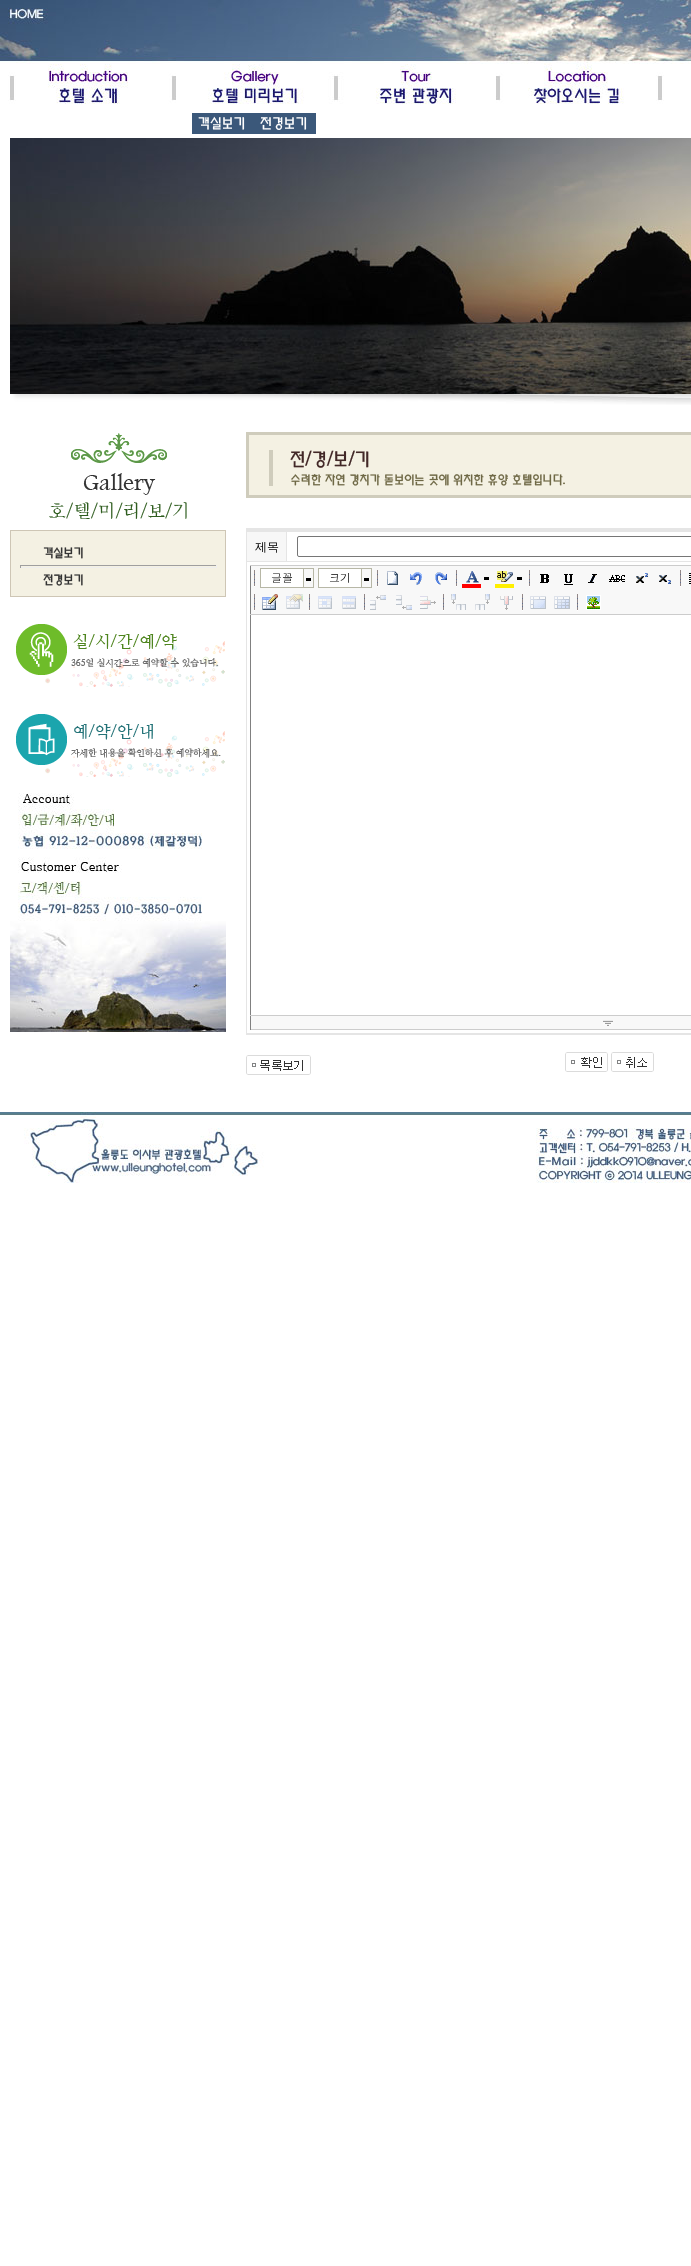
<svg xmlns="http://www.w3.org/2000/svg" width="691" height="2266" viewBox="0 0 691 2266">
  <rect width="100%" height="100%" fill="rgb(255,255,255)"/>
  <image x="0" y="0" width="691" height="104" href="pic1.png"/>
  <image x="192" y="113" width="62" height="21" href="pic2.png"/>
  <image x="254" y="113" width="62" height="21" href="pic3.png"/>
  <image x="10" y="138" width="681" height="267" href="pic4.png"/>
  <image x="49" y="433" width="138" height="86" href="pic5.png"/>
  <rect x="10" y="530" width="216" height="1" fill="rgb(206,198,181)"/>
  <rect x="225" y="530" width="1" height="67" fill="rgb(206,198,181)"/>
  <rect x="10" y="596" width="216" height="1" fill="rgb(206,198,181)"/>
  <rect x="10" y="530" width="1" height="67" fill="rgb(206,198,181)"/>
  <rect x="11" y="531" width="214" height="65" fill="rgb(244,241,227)"/>
  <image x="43" y="547" width="40" height="12" href="pic6.png"/>
  <rect x="20" y="565" width="197" height="1" fill="rgb(159,159,159)"/>
  <rect x="216" y="565" width="1" height="3" fill="rgb(238,238,238)"/>
  <rect x="20" y="567" width="197" height="1" fill="rgb(238,238,238)"/>
  <rect x="20" y="565" width="1" height="3" fill="rgb(159,159,159)"/>
  <image x="43" y="574" width="40" height="12" href="pic7.png"/>
  <image x="16" y="624" width="209" height="63" href="pic8.png"/>
  <image x="16" y="714" width="209" height="63" href="pic9.png"/>
  <image x="10" y="793" width="216" height="239" href="pic10.png"/>
  <image x="246" y="432" width="445" height="66" href="pic11.png"/>
  <rect x="246" y="528" width="445" height="4" fill="rgb(229,229,229)"/>
  <rect x="246" y="1033" width="445" height="2" fill="rgb(229,229,229)"/>
  <rect x="246" y="531" width="1" height="503" fill="rgb(229,229,229)"/>
  <rect x="247" y="532" width="39" height="29" fill="rgb(247,247,247)"/>
  <text x="255" y="551" font-family="WenQuanYi Zen Hei" font-size="12" font-weight="500" fill="rgb(0,0,0)">제목</text>
  <rect x="246" y="561" width="445" height="1" fill="rgb(229,229,229)"/>
  <rect x="286" y="531" width="1" height="31" fill="rgb(229,229,229)"/>
  <rect x="297.5" y="536.5" width="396" height="20" rx="1.5" fill="none" stroke="rgb(118,118,118)"/>
  <rect x="251" y="566" width="440" height="463" fill="rgb(248,248,248)"/>
  <rect x="250" y="565" width="1" height="465" fill="rgb(128,128,128)"/>
  <rect x="250" y="565" width="441" height="1" fill="rgb(204,204,204)"/>
  <image x="254" y="570" width="1" height="17" href="pic12.png"/>
  <rect x="261" y="569" width="42" height="18" fill="rgb(255,255,255)"/>
  <rect x="260" y="568" width="43" height="1" fill="rgb(183,183,166)"/>
  <rect x="260" y="587" width="43" height="1" fill="rgb(183,183,166)"/>
  <rect x="260" y="568" width="1" height="20" fill="rgb(183,183,166)"/>
  <text x="271" y="582" font-family="Dotum" font-size="11" fill="rgb(0,0,0)">글꼴</text>
  <rect x="306" y="578" width="5" height="3" fill="rgb(0,0,0)"/>
  <rect x="303.5" y="568.5" width="10" height="19" fill="none" stroke="rgb(183,183,166)"/>
  <rect x="319" y="569" width="42" height="18" fill="rgb(255,255,255)"/>
  <rect x="318" y="568" width="43" height="1" fill="rgb(183,183,166)"/>
  <rect x="318" y="587" width="43" height="1" fill="rgb(183,183,166)"/>
  <rect x="318" y="568" width="1" height="20" fill="rgb(183,183,166)"/>
  <text x="329" y="582" font-family="Dotum" font-size="11" fill="rgb(0,0,0)">크기</text>
  <rect x="364" y="578" width="5" height="3" fill="rgb(0,0,0)"/>
  <rect x="361.5" y="568.5" width="10" height="19" fill="none" stroke="rgb(183,183,166)"/>
  <image x="377" y="570" width="1" height="17" href="pic12.png"/>
  <image x="387" y="571" width="11" height="14" href="pic13.png"/>
  <image x="410" y="572" width="12" height="13" href="pic14.png"/>
  <image x="435" y="572" width="12" height="13" href="pic15.png"/>
  <image x="456" y="570" width="1" height="17" href="pic12.png"/>
  <image x="466" y="571" width="13" height="12" href="pic16.png"/>
  <rect x="462" y="584" width="19" height="4" fill="rgb(255,0,0)"/>
  <rect x="484" y="577" width="5" height="3" fill="rgb(0,0,0)"/>
  <image x="497" y="571" width="16" height="11" href="pic17.png"/>
  <rect x="495" y="584" width="19" height="4" fill="rgb(255,239,0)"/>
  <rect x="517" y="577" width="5" height="3" fill="rgb(0,0,0)"/>
  <image x="529" y="570" width="1" height="17" href="pic12.png"/>
  <image x="540" y="574" width="9" height="9" href="pic18.png"/>
  <image x="564" y="574" width="9" height="11" href="pic19.png"/>
  <image x="588" y="574" width="9" height="9" href="pic20.png"/>
  <image x="609" y="575" width="16" height="7" href="pic21.png"/>
  <image x="636" y="573" width="12" height="10" href="pic22.png"/>
  <image x="659" y="575" width="12" height="9" href="pic23.png"/>
  <image x="680" y="570" width="1" height="17" href="pic12.png"/>
  <image x="689" y="573" width="2" height="11" href="pic24.png"/>
  <image x="254" y="594" width="1" height="17" href="pic12.png"/>
  <image x="262" y="594" width="16" height="16" href="pic25.png"/>
  <image x="286" y="594" width="17" height="15" href="pic26.png"/>
  <image x="309" y="594" width="1" height="17" href="pic12.png"/>
  <image x="318" y="596" width="14" height="13" href="pic27.png"/>
  <image x="342" y="596" width="14" height="13" href="pic28.png"/>
  <image x="364" y="594" width="1" height="17" href="pic12.png"/>
  <image x="370" y="595" width="16" height="15" href="pic29.png"/>
  <image x="396" y="595" width="16" height="15" href="pic30.png"/>
  <image x="420" y="596" width="16" height="13" href="pic31.png"/>
  <image x="443" y="594" width="1" height="17" href="pic12.png"/>
  <image x="451" y="594" width="15" height="16" href="pic32.png"/>
  <image x="475" y="594" width="15" height="16" href="pic33.png"/>
  <image x="500" y="596" width="13" height="14" href="pic34.png"/>
  <image x="522" y="594" width="1" height="17" href="pic12.png"/>
  <image x="530" y="596" width="16" height="13" href="pic35.png"/>
  <image x="554" y="596" width="16" height="13" href="pic36.png"/>
  <image x="577" y="594" width="1" height="17" href="pic12.png"/>
  <image x="586" y="595" width="15" height="15" href="pic37.png"/>
  <rect x="250" y="614" width="441" height="1" fill="rgb(204,204,204)"/>
  <rect x="250" y="1015" width="441" height="1" fill="rgb(204,204,204)"/>
  <rect x="251" y="615" width="440" height="400" fill="rgb(255,255,255)"/>
  <image x="603" y="1020" width="10" height="6" href="pic38.png"/>
  <rect x="251" y="1029" width="440" height="1" fill="rgb(204,204,204)"/>
  <image x="246" y="1055" width="65" height="20" href="pic39.png"/>
  <image x="565" y="1052" width="43" height="20" href="pic40.png"/>
  <image x="611" y="1052" width="43" height="20" href="pic41.png"/>
  <image x="0" y="1112" width="691" height="71" href="pic42.png"/>
</svg>
